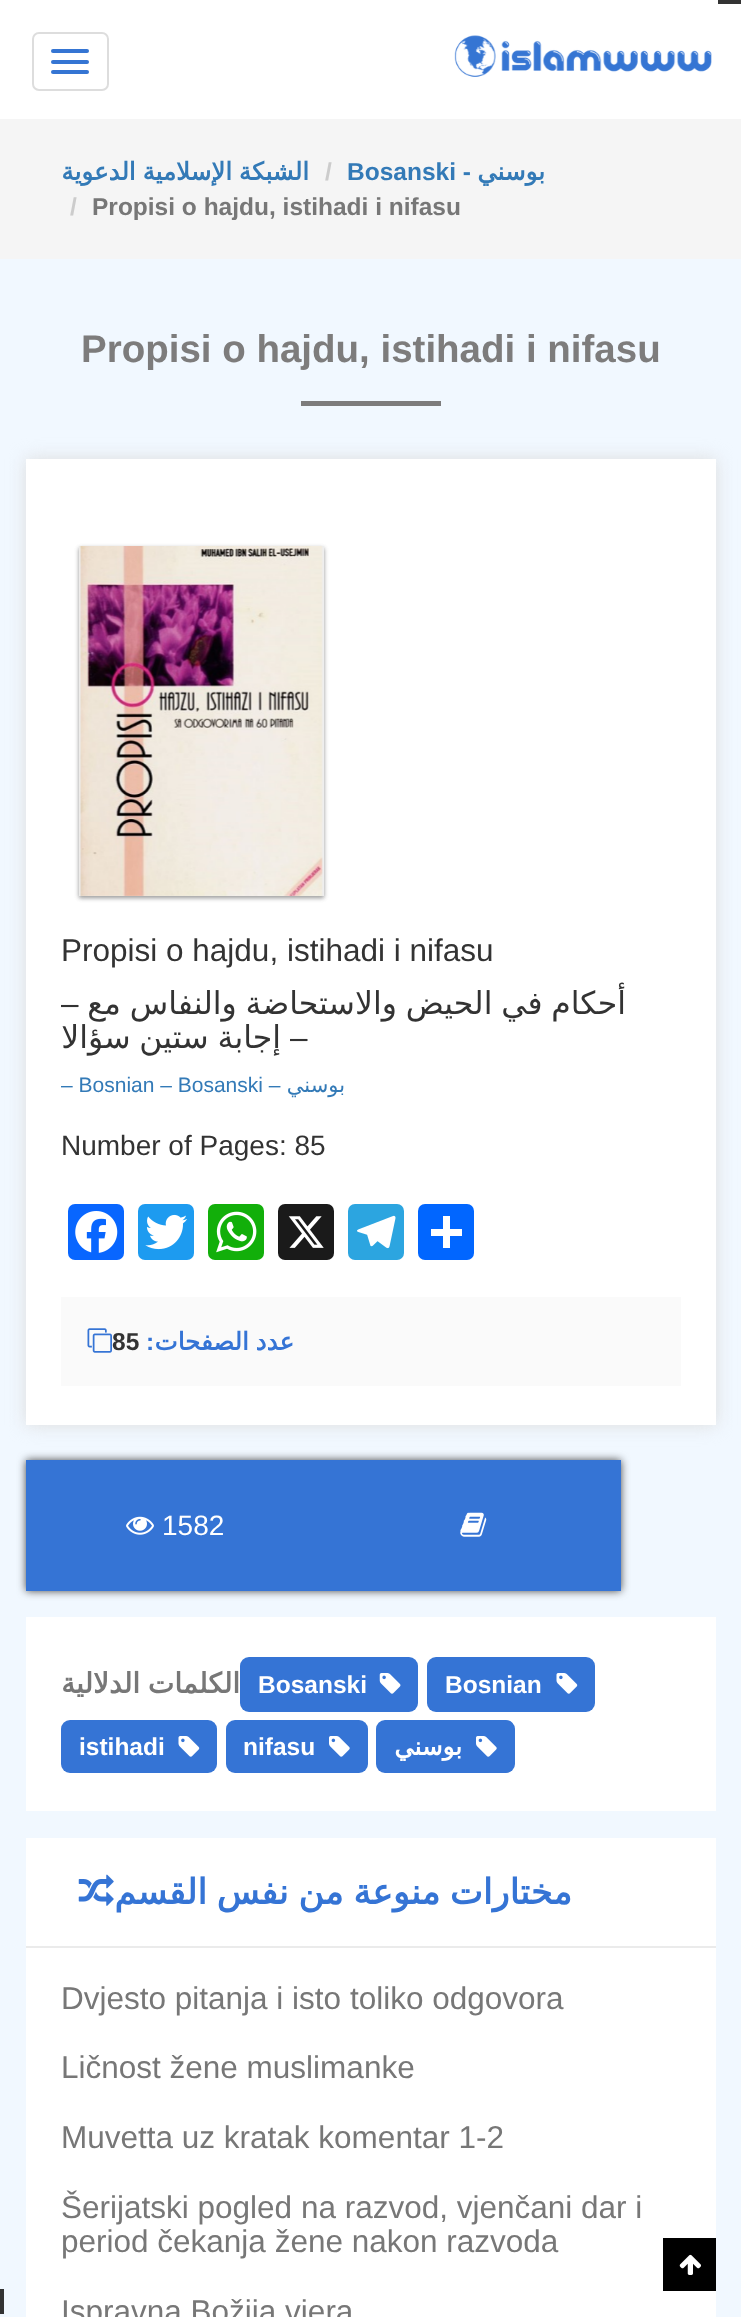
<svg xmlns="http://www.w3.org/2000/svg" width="741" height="2317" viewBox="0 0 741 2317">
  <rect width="100%" height="100%" fill="rgb(241,248,255)"/>
  <rect x="0" y="0" width="741" height="119" fill="rgb(255,255,255)"/>
  <rect x="33" y="33" width="75" height="57" rx="6" fill="none" stroke="rgb(221,221,221)" stroke-width="2"/>
  <rect x="51" y="49" width="38" height="4" rx="2" fill="rgb(53,117,211)"/>
  <rect x="51" y="60" width="38" height="4" rx="2" fill="rgb(53,117,211)"/>
  <rect x="51" y="70" width="38" height="4" rx="2" fill="rgb(53,117,211)"/>
  <image x="454" y="35" width="258" height="42" href="pic1.png"/>
  <rect x="718" y="0" width="23" height="4" fill="rgb(51,51,51)"/>
  <rect x="0" y="119" width="741" height="140" fill="rgb(245,245,245)"/>
  <text x="309" y="180" word-spacing="-1" font-family="DejaVu Sans" font-size="24.5" font-weight="bold" direction="rtl" fill="rgb(51,122,183)">الشبكة الإسلامية الدعوية</text>
  <text x="325" y="180" font-family="Liberation Sans" font-size="24.5" font-weight="bold" fill="rgb(204,204,204)">/</text>
  <text x="347" y="180" font-family="Liberation Sans" font-size="24.5" font-weight="bold" fill="rgb(51,122,183)">Bosanski -</text>
  <text x="545" y="180" font-family="DejaVu Sans" font-size="24.5" font-weight="bold" direction="rtl" fill="rgb(51,122,183)">بوسني</text>
  <text x="70" y="215" font-family="Liberation Sans" font-size="24.5" font-weight="bold" fill="rgb(204,204,204)">/</text>
  <text x="92" y="215" font-family="Liberation Sans" font-size="24.5" font-weight="bold" fill="rgb(119,119,119)">Propisi o hajdu, istihadi i nifasu</text>
  <text x="81" y="362" font-family="Liberation Sans" font-size="38.5" font-weight="bold" fill="rgb(125,124,124)">Propisi o hajdu, istihadi i nifasu</text>
  <rect x="301" y="401" width="140" height="5" fill="rgb(125,124,124)"/>
  <rect x="26" y="459" width="690" height="966" fill="rgb(221,221,221)" filter="blur(9px)"/>
  <rect x="26" y="459" width="690" height="966" fill="rgb(255,255,255)"/>
  <rect x="79" y="548" width="245" height="350" fill="rgba(0,0,0,0.22)" filter="blur(2px)"/>
  <rect x="79" y="548" width="245" height="350" fill="rgba(0,0,0,0.22)" filter="blur(2px)"/>
  <rect x="79" y="546" width="245" height="350" fill="rgb(238,238,238)"/>
  <image x="79" y="546" width="244" height="350" href="pic2.png"/>
  <g font-family="Liberation Sans" font-size="31.5" fill="rgb(51,51,51)">
    <text>
      <tspan x="61" y="961">Propisi o hajdu, istihadi i nifasu</tspan>
      <tspan x="61" y="1014">–</tspan>
    </text>
  </g>
  <g font-family="DejaVu Sans" font-size="31.5" direction="rtl" fill="rgb(51,51,51)">
    <text x="626" y="1014" word-spacing="-1.25">أحكام في الحيض والاستحاضة والنفاس مع</text>
    <text x="281" y="1048" word-spacing="-1.25">إجابة ستين سؤالا</text>
  </g>
  <text x="290" y="1048" font-family="Liberation Sans" font-size="31.5" fill="rgb(51,51,51)">–</text>
  <text x="61" y="1092" font-family="Liberation Sans" font-size="21" fill="rgb(51,122,183)">– Bosnian – Bosanski –</text>
  <text x="345" y="1092" font-family="DejaVu Sans" font-size="21" direction="rtl" fill="rgb(51,122,183)">بوسني</text>
  <text x="61" y="1155" font-family="Liberation Sans" font-size="28" fill="rgb(51,51,51)">Number of Pages: 85</text>
  <rect x="68" y="1204" width="56" height="56" rx="7" fill="rgb(8,102,255)"/>
  <image x="75" y="1211" width="43" height="42" href="pic3.png"/>
  <rect x="138" y="1204" width="56" height="56" rx="7" fill="rgb(29,155,240)"/>
  <image x="145" y="1214" width="43" height="36" href="pic4.png"/>
  <rect x="208" y="1204" width="56" height="56" rx="7" fill="rgb(18,175,10)"/>
  <image x="216" y="1211" width="41" height="42" href="pic5.png"/>
  <rect x="278" y="1204" width="56" height="56" rx="7" fill="rgb(26,26,26)"/>
  <image x="288" y="1216" width="36" height="32" href="pic6.png"/>
  <rect x="348" y="1204" width="56" height="56" rx="7" fill="rgb(44,165,224)"/>
  <image x="357" y="1215" width="39" height="34" href="pic7.png"/>
  <rect x="418" y="1204" width="56" height="56" rx="7" fill="rgb(1,102,255)"/>
  <rect x="443" y="1216" width="7" height="32" fill="rgb(255,255,255)"/>
  <rect x="431" y="1229" width="31" height="7" fill="rgb(255,255,255)"/>
  <rect x="61" y="1297" width="620" height="89" fill="rgb(250,250,250)"/>
  <image x="87" y="1328" width="25" height="25" href="pic8.png"/>
  <text x="112" y="1350" font-family="Liberation Sans" font-size="24.5" font-weight="bold" fill="rgb(51,51,51)">85</text>
  <text x="146" y="1350" font-family="Liberation Sans" font-size="24.5" font-weight="bold" fill="rgb(53,116,213)">:</text>
  <text x="294" y="1350" word-spacing="-1" font-family="DejaVu Sans" font-size="24.5" font-weight="bold" direction="rtl" fill="rgb(53,116,213)">عدد الصفحات</text>
  <rect x="26" y="1460" width="595" height="131" fill="rgb(71,71,71)" filter="blur(4.5px)"/>
  <rect x="26" y="1460" width="595" height="131" fill="rgb(53,116,213)"/>
  <image x="126" y="1516" width="28" height="19" href="pic9.png"/>
  <text x="162" y="1535" font-family="Liberation Sans" font-size="28" fill="rgb(255,255,255)">1582</text>
  <image x="460" y="1512" width="27" height="25" href="pic10.png"/>
  <rect x="26" y="1617" width="690" height="194" fill="rgb(255,255,255)"/>
  <text x="240" y="1693" word-spacing="-1" font-family="DejaVu Sans" font-size="28" font-weight="bold" direction="rtl" fill="rgb(119,119,119)">الكلمات الدلالية</text>
  <rect x="240" y="1657" width="178" height="55" rx="9" fill="rgb(53,116,213)"/>
  <text x="258" y="1693" font-family="Liberation Sans" font-size="24.5" font-weight="bold" fill="rgb(255,255,255)">Bosanski</text>
  <image x="379" y="1673" width="22" height="21" href="pic11.png"/>
  <rect x="427" y="1657" width="168" height="55" rx="9" fill="rgb(53,116,213)"/>
  <text x="445" y="1693" font-family="Liberation Sans" font-size="24.5" font-weight="bold" fill="rgb(255,255,255)">Bosnian</text>
  <image x="556" y="1673" width="22" height="21" href="pic12.png"/>
  <rect x="61" y="1720" width="156" height="53" rx="9" fill="rgb(53,116,213)"/>
  <text x="79" y="1755" font-family="Liberation Sans" font-size="24.5" font-weight="bold" fill="rgb(255,255,255)">istihadi</text>
  <image x="178" y="1736" width="22" height="21" href="pic12.png"/>
  <rect x="226" y="1720" width="142" height="53" rx="9" fill="rgb(53,116,213)"/>
  <text x="243" y="1755" font-family="Liberation Sans" font-size="24.5" font-weight="bold" fill="rgb(255,255,255)">nifasu</text>
  <image x="329" y="1736" width="21" height="21" href="pic13.png"/>
  <rect x="376" y="1720" width="139" height="53" rx="9" fill="rgb(53,116,213)"/>
  <text x="462" y="1755" font-family="DejaVu Sans" font-size="24.5" font-weight="bold" direction="rtl" fill="rgb(255,255,255)">بوسني</text>
  <image x="476" y="1736" width="21" height="21" href="pic13.png"/>
  <rect x="26" y="1838" width="690" height="479" fill="rgb(255,255,255)"/>
  <rect x="26" y="1946" width="690" height="2" fill="rgb(235,235,235)"/>
  <image x="78" y="1874" width="36" height="32" href="pic14.png"/>
  <text x="572" y="1904" word-spacing="-1.5" font-family="DejaVu Sans" font-size="35" font-weight="bold" direction="rtl" fill="rgb(53,116,213)">مختارات منوعة من نفس القسم</text>
  <g font-family="Liberation Sans" font-size="31.5" fill="rgb(119,119,119)">
    <text x="61" y="2009">Dvjesto pitanja i isto toliko odgovora</text>
    <text x="61" y="2078">Ličnost žene muslimanke</text>
    <text x="61" y="2148">Muvetta uz kratak komentar 1-2</text>
    <text>
      <tspan x="61" y="2218">Šerijatski pogled na razvod, vjenčani dar i</tspan>
      <tspan x="61" y="2252">period čekanja žene nakon razvoda</tspan>
    </text>
    <text x="61" y="2322">Ispravna Božija vjera</text>
  </g>
  <rect x="663" y="2238" width="53" height="53" fill="rgb(0,0,0)"/>
  <image x="679" y="2254" width="22" height="21" href="pic15.png"/>
  <rect x="0" y="2289" width="4" height="25" fill="rgb(51,51,51)"/>
</svg>
